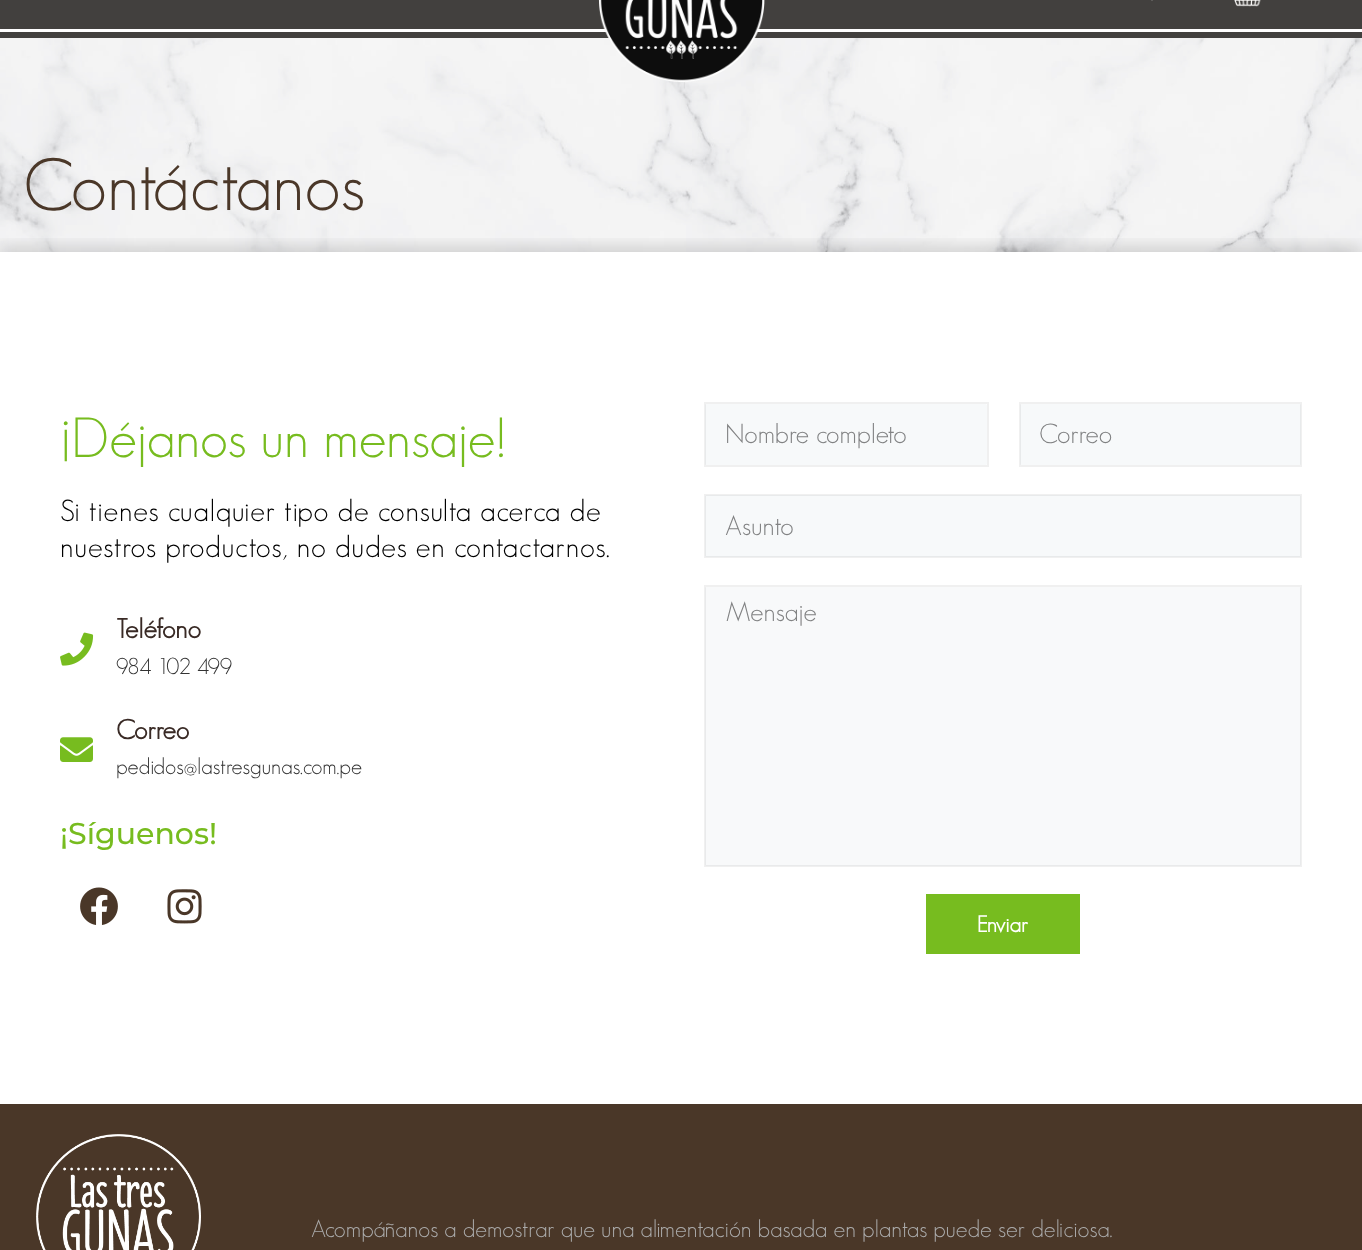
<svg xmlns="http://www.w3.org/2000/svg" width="1362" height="1250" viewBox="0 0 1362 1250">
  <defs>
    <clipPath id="clip1"><rect x="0" y="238" width="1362" height="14"/></clipPath>
  </defs>
  <rect width="100%" height="100%" fill="rgb(255,255,255)"/>
  <rect x="0" y="0" width="1362" height="38" fill="rgb(66,64,62)"/>
  <rect x="0" y="29" width="1362" height="3" fill="rgb(255,255,255)"/>
  <image x="0" y="38" width="1362" height="214" href="pic3.png"/>
  <image x="598" y="0" width="167" height="89" href="pic1.png"/>
  <path d="M1164-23.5C1160-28 1155.5-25.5 1152-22L1150.5-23.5C1147.5-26.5 1143-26.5 1140-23.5C1137-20.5 1137-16 1140-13L1152-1L1159-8C1163-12 1170-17.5 1164-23.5Z" fill="none" stroke="rgb(255,255,255)" stroke-width="2.5" stroke-linecap="round" stroke-linejoin="round"/>
  <image x="1234" y="0" width="27" height="7" href="pic2.png"/>
  <text x="23" y="210" font-family="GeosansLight" font-size="72" font-weight="300" fill="rgb(74,55,40)">Contáctanos</text>
  <g clip-path="url(#clip1)">
    <rect x="0" y="246" width="1362" height="852" fill="rgba(0,0,0,0.14)" filter="blur(7.5px)"/>
  </g>
  <text x="60" y="457" font-family="GeosansLight" font-size="55.5" font-weight="300" fill="rgb(119,188,31)">¡Déjanos un mensaje!</text>
  <g font-family="GeosansLight" font-size="30" font-weight="300" letter-spacing="0.75" fill="rgb(0,0,0)">
    <text>
      <tspan x="60" y="521">Si tienes cualquier tipo de consulta acerca de</tspan>
      <tspan x="60" y="557">nuestros productos, no dudes en contactarnos.</tspan>
    </text>
  </g>
  <image x="60" y="632" width="34" height="34" href="pic4.png"/>
  <text x="116" y="638" font-family="GeosansLight" font-size="27" font-weight="bold" fill="rgb(57,42,37)">Teléfono</text>
  <text x="116" y="674" font-family="GeosansLight" font-size="22.5" font-weight="300" fill="rgb(51,51,51)">984 102 499</text>
  <image x="60" y="737" width="33" height="25" href="pic5.png"/>
  <text x="116" y="739" font-family="GeosansLight" font-size="27" font-weight="bold" fill="rgb(57,42,37)">Correo</text>
  <text x="116" y="774" font-family="GeosansLight" font-size="22.5" font-weight="300" fill="rgb(51,51,51)">pedidos@lastresgunas.com.pe</text>
  <text x="60" y="844" font-family="Montserrat" font-size="30" font-weight="500" fill="rgb(119,188,31)">¡Síguenos!</text>
  <image x="80" y="887" width="38" height="38" href="pic6.png"/>
  <image x="167" y="889" width="35" height="35" href="pic7.png"/>
  <rect x="705" y="404" width="282" height="61" rx="1.5" fill="rgb(247,249,250)"/>
  <rect x="705" y="403" width="283" height="63" fill="none" stroke="rgba(2,1,1,0.06)" stroke-width="2"/>
  <text x="725" y="443" font-family="GeosansLight" font-size="27" font-weight="300" fill="rgb(129,130,131)">Nombre completo</text>
  <rect x="1020" y="404" width="281" height="61" rx="1.5" fill="rgb(247,249,250)"/>
  <rect x="1020" y="403" width="281" height="63" fill="none" stroke="rgba(2,1,1,0.06)" stroke-width="2"/>
  <text x="1039" y="443" font-family="GeosansLight" font-size="27" font-weight="300" fill="rgb(129,130,131)">Correo</text>
  <rect x="705" y="495" width="596" height="62" rx="1.5" fill="rgb(247,249,250)"/>
  <rect x="705" y="495" width="596" height="62" fill="none" stroke="rgba(2,1,1,0.06)" stroke-width="2"/>
  <text x="725" y="535" font-family="GeosansLight" font-size="27" font-weight="300" fill="rgb(129,130,131)">Asunto</text>
  <rect x="705" y="587" width="596" height="279" rx="1.5" fill="rgb(248,249,250)"/>
  <rect x="705" y="586" width="596" height="280" fill="none" stroke="rgba(2,1,1,0.06)" stroke-width="2"/>
  <text x="726" y="621" font-family="GeosansLight" font-size="27" font-weight="300" fill="rgb(129,130,131)">Mensaje</text>
  <rect x="926" y="894" width="154" height="60" fill="rgb(119,188,31)"/>
  <text x="977" y="932" font-family="GeosansLight" font-size="22.5" font-weight="bold" fill="rgb(255,255,255)">Enviar</text>
  <rect x="0" y="1104" width="1362" height="146" fill="rgb(74,55,40)"/>
  <image x="36" y="1134" width="165" height="116" href="pic8.png"/>
  <text x="311" y="1237" font-family="GeosansLight" font-size="24" font-weight="300" fill="rgb(171,171,171)">Acompáñanos a demostrar que una alimentación basada en plantas puede ser deliciosa.</text>
</svg>
